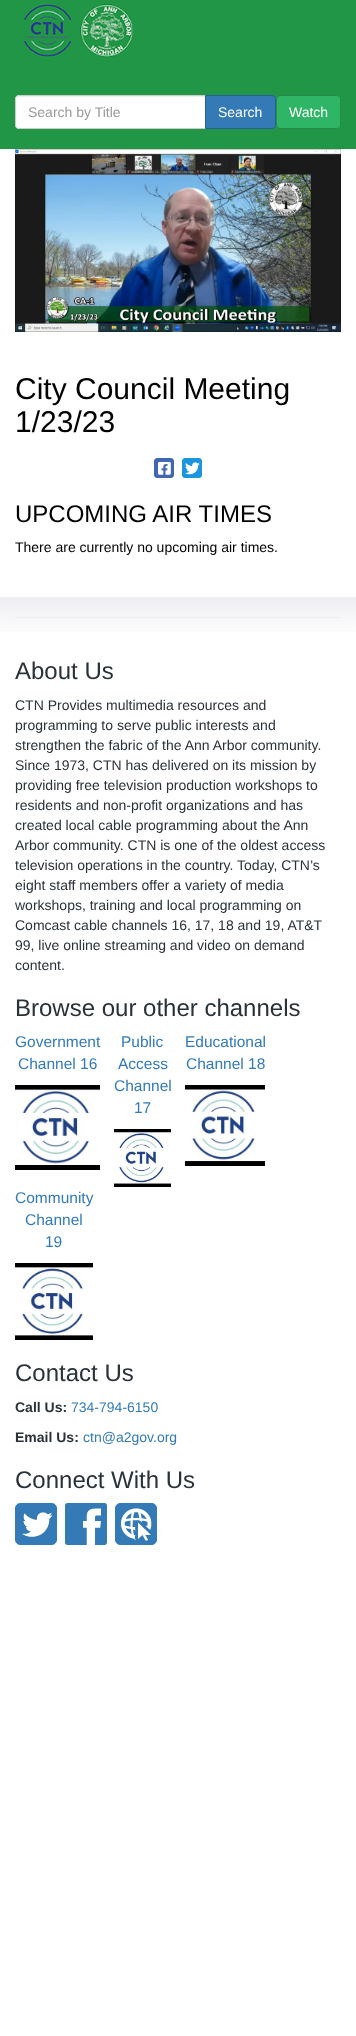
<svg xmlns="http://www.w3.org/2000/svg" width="356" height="2036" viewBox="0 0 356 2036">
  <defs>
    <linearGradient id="g1" gradientUnits="userSpaceOnUse" x1="178" y1="149" x2="178" y2="638"><stop offset="0" stop-color="rgb(52,52,105)"/><stop offset="1" stop-color="rgb(255,255,255)"/></linearGradient>
  </defs>
  <rect width="100%" height="100%" fill="rgb(255,255,255)"/>
  <rect x="0" y="0" width="356" height="149" fill="rgb(33,150,70)"/>
  <image x="23" y="3" width="110" height="55" href="pic1.png"/>
  <path d="M19 95H206V129H19C17 129 15 127 15 125V99C15 97 17 95 19 95Z" fill="rgb(255,255,255)"/>
  <path d="M19 97H205V96H19C17 96 16 98 16 100C16 98 17 97 19 97Z" fill="rgb(236,236,236)"/>
  <path d="M19 95.5H205.5V128.5H19C17 128.5 15.5 127 15.5 125V99C15.5 97 17 95.5 19 95.5Z" fill="none" stroke="rgb(204,204,204)"/>
  <text x="28" y="117" font-family="Liberation Sans" font-size="14" fill="rgb(153,153,153)">Search by Title</text>
  <path d="M205.5 95.5H272C274 95.5 275.5 97 275.5 99V125C275.5 127 274 128.5 272 128.5H205.5Z" fill="rgb(51,122,183)" stroke="rgb(40,97,143)"/>
  <text x="218" y="117" font-family="Liberation Sans" font-size="14" fill="rgb(255,255,255)">Search</text>
  <rect x="276.5" y="95.5" width="64" height="33" rx="3.5" fill="rgb(47,181,102)" stroke="rgb(36,141,78)"/>
  <text x="289" y="117" font-family="Liberation Sans" font-size="14" fill="rgb(255,255,255)">Watch</text>
  <rect x="0" y="597" width="356" height="35" fill="url(#g1)"/>
  <image x="15" y="149" width="326" height="183" href="pic2.png"/>
  <g font-family="Liberation Sans" font-size="30" fill="rgb(0,0,0)">
    <text>
      <tspan x="15" y="399">City Council Meeting</tspan>
      <tspan x="15" y="432">1/23/23</tspan>
    </text>
  </g>
  <rect x="154.5" y="458.5" width="19" height="19" rx="2.5" fill="rgb(66,103,178)" stroke="rgb(66,103,178)"/>
  <image x="158" y="461" width="13" height="14" href="pic3.png"/>
  <rect x="182.5" y="458.5" width="19" height="19" rx="2.5" fill="rgb(27,149,224)" stroke="rgb(27,149,224)"/>
  <image x="185" y="462" width="15" height="13" href="pic4.png"/>
  <text x="15" y="522" font-family="Liberation Sans" font-size="24" fill="rgb(0,0,0)">UPCOMING AIR TIMES</text>
  <text x="15" y="552" font-family="Liberation Sans" font-size="14" fill="rgb(0,0,0)">There are currently no upcoming air times.</text>
  <rect x="15" y="617" width="326" height="1" fill="rgb(238,238,238)"/>
  <text x="15" y="679" font-family="Liberation Sans" font-size="24" fill="rgb(41,50,57)">About Us</text>
  <g font-family="Liberation Sans" font-size="14" fill="rgb(41,50,57)">
    <text>
      <tspan x="15" y="710">CTN Provides multimedia resources and</tspan>
      <tspan x="15" y="730">programming to serve public interests and</tspan>
      <tspan x="15" y="750">strengthen the fabric of the Ann Arbor community.</tspan>
      <tspan x="15" y="770">Since 1973, CTN has delivered on its mission by</tspan>
      <tspan x="15" y="790">providing free television production workshops to</tspan>
      <tspan x="15" y="810">residents and non-profit organizations and has</tspan>
      <tspan x="15" y="830">created local cable programming about the Ann</tspan>
      <tspan x="15" y="850">Arbor community. CTN is one of the oldest access</tspan>
      <tspan x="15" y="870">television operations in the country. Today, CTN’s</tspan>
      <tspan x="15" y="890">eight staff members offer a variety of media</tspan>
      <tspan x="15" y="910">workshops, training and local programming on</tspan>
      <tspan x="15" y="930">Comcast cable channels 16, 17, 18 and 19, AT&amp;T</tspan>
      <tspan x="15" y="950">99, live online streaming and video on demand</tspan>
      <tspan x="15" y="970">content.</tspan>
    </text>
  </g>
  <text x="15" y="1016" font-family="Liberation Sans" font-size="24" fill="rgb(41,50,57)">Browse our other channels</text>
  <g font-family="Liberation Sans" font-size="15.5" fill="rgb(51,122,183)">
    <text x="15" y="1047">Government</text>
    <text x="18" y="1069">Channel 16</text>
  </g>
  <image x="15" y="1085" width="85" height="85" href="pic5.png"/>
  <g font-family="Liberation Sans" font-size="15.5" fill="rgb(51,122,183)">
    <text x="121" y="1047">Public</text>
    <text x="118" y="1069">Access</text>
    <text x="114" y="1091">Channel</text>
    <text x="134" y="1113">17</text>
  </g>
  <image x="114" y="1129" width="57" height="58" href="pic6.png"/>
  <g font-family="Liberation Sans" font-size="15.5" fill="rgb(51,122,183)">
    <text x="185" y="1047">Educational</text>
    <text x="186" y="1069">Channel 18</text>
  </g>
  <image x="185" y="1085" width="80" height="81" href="pic7.png"/>
  <g font-family="Liberation Sans" font-size="15.5" fill="rgb(51,122,183)">
    <text x="15" y="1203">Community</text>
    <text x="25" y="1225">Channel</text>
    <text x="45" y="1247">19</text>
  </g>
  <image x="15" y="1263" width="78" height="77" href="pic8.png"/>
  <text x="15" y="1381" font-family="Liberation Sans" font-size="24" fill="rgb(41,50,57)">Contact Us</text>
  <text x="15" y="1412" font-family="Liberation Sans" font-size="14" font-weight="bold" fill="rgb(41,50,57)">Call Us:</text>
  <text x="71" y="1412" font-family="Liberation Sans" font-size="14" fill="rgb(51,122,183)">734-794-6150</text>
  <text x="15" y="1442" font-family="Liberation Sans" font-size="14" font-weight="bold" fill="rgb(41,50,57)">Email Us:</text>
  <text x="83" y="1442" font-family="Liberation Sans" font-size="14" fill="rgb(51,122,183)">ctn@a2gov.org</text>
  <text x="15" y="1488" font-family="Liberation Sans" font-size="24" fill="rgb(41,50,57)">Connect With Us</text>
  <image x="15" y="1503" width="42" height="42" href="pic9.png"/>
  <image x="65" y="1503" width="42" height="42" href="pic10.png"/>
  <image x="115" y="1503" width="42" height="42" href="pic11.png"/>
</svg>
